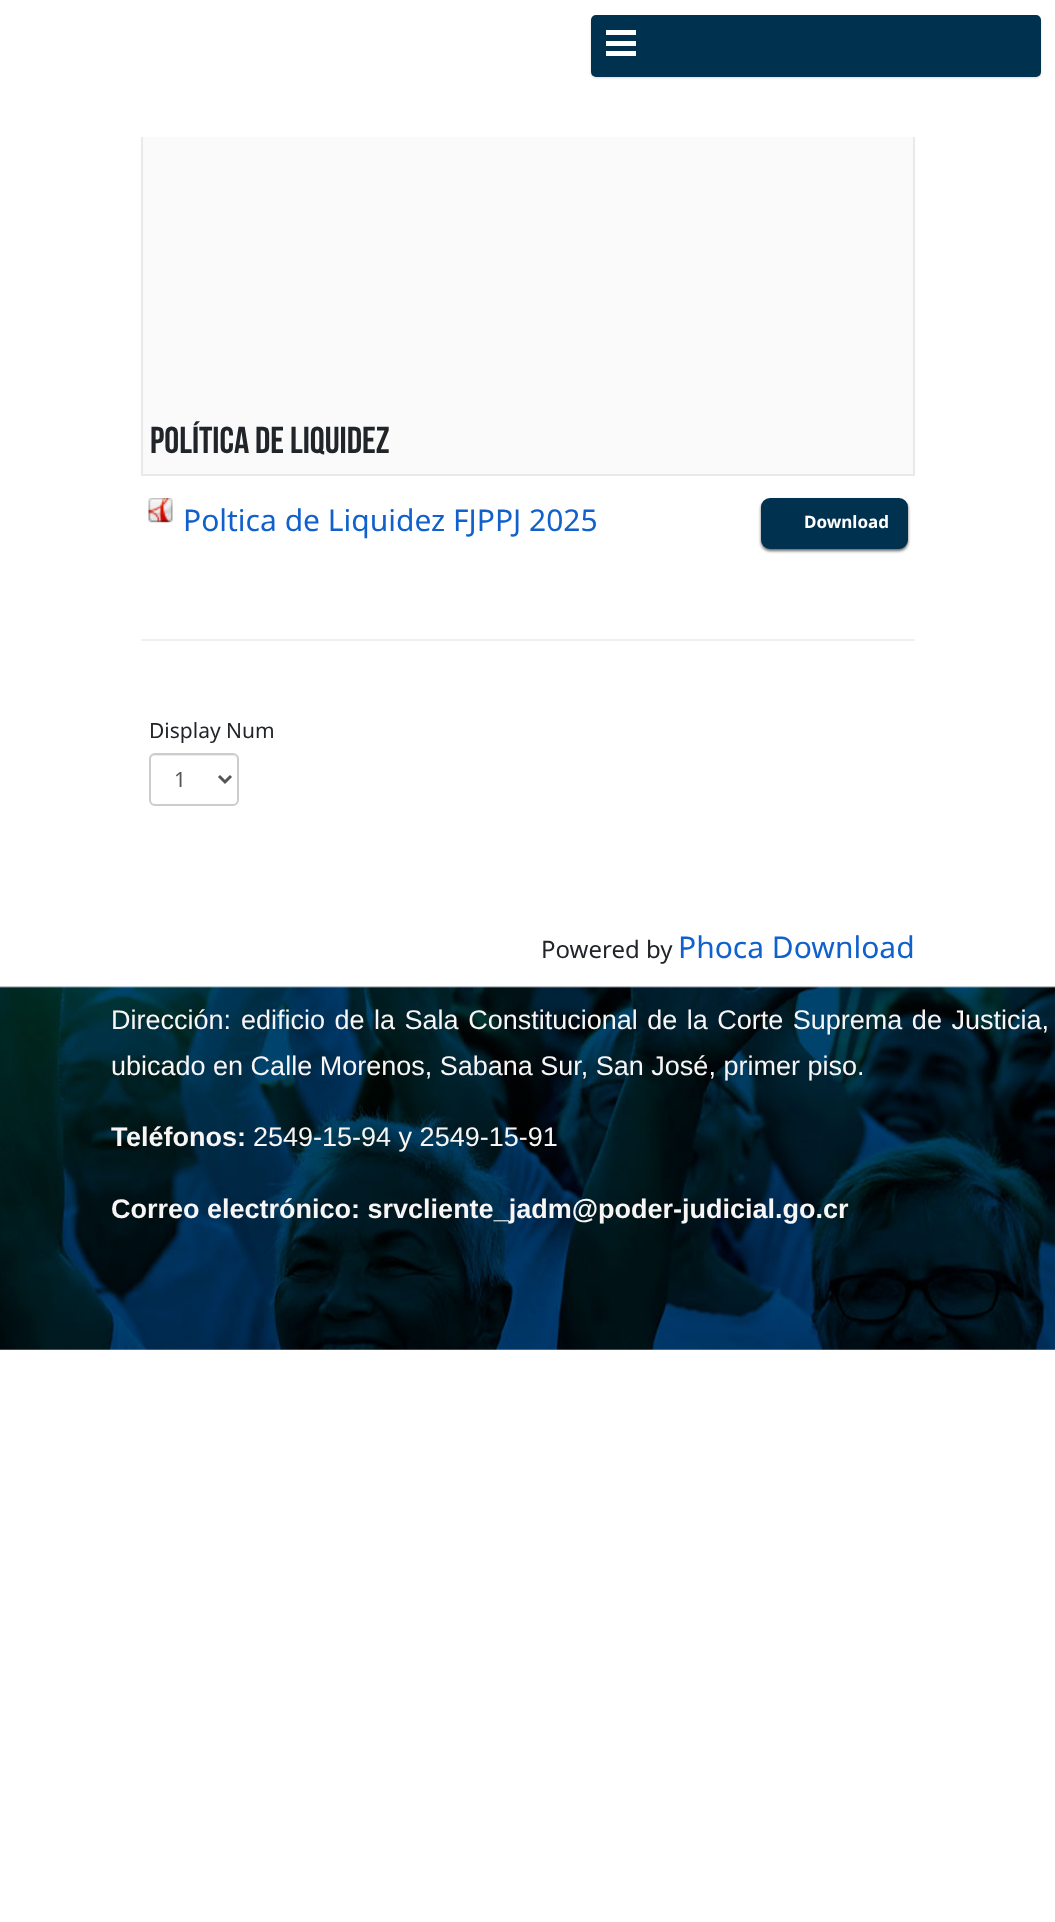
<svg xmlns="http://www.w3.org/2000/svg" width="1055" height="1922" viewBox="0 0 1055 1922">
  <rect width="100%" height="100%" fill="rgb(255,255,255)"/>
  <rect x="143" y="137" width="770" height="337" fill="rgb(250,250,250)"/>
  <rect x="142" y="16" width="772" height="459" fill="none" stroke="rgb(233,233,233)" stroke-width="2"/>
  <rect x="141" y="15" width="774" height="122" fill="rgb(255,255,255)"/>
  <rect x="591" y="17" width="450" height="61" rx="5" fill="rgba(0,0,0,0.15)" filter="blur(1px)"/>
  <rect x="591" y="15" width="450" height="62" rx="5" fill="rgb(0,50,80)"/>
  <rect x="606" y="30" width="30" height="5" fill="rgb(255,255,255)"/>
  <rect x="606" y="41" width="30" height="5" fill="rgb(255,255,255)"/>
  <rect x="606" y="51" width="30" height="5" fill="rgb(255,255,255)"/>
  <text x="150" y="453" font-family="Bebas Neue" font-size="37.5" font-weight="bold" fill="rgb(33,37,41)">Política de liquidez</text>
  <rect x="141" y="639" width="774" height="2" fill="rgb(240,240,240)"/>
  <image x="148" y="498" width="25" height="25" href="pic1.png"/>
  <text x="183" y="531" font-family="Noto Sans" font-size="30" fill="rgb(16,97,204)">Poltica de Liquidez FJPPJ 2025</text>
  <rect x="761" y="500" width="147" height="51" rx="9" fill="rgba(0,0,0,0.6)" filter="blur(1.5px)"/>
  <rect x="762" y="499" width="145" height="49" rx="8" fill="rgb(0,50,80)" stroke="rgb(0,50,80)" stroke-width="2"/>
  <text x="804" y="528" font-family="Noto Sans" font-size="17" font-weight="bold" fill="rgb(255,255,255)">Download</text>
  <text x="149" y="738" font-family="Noto Sans" font-size="21" fill="rgb(33,37,41)">Display Num</text>
  <path d="M154 756H232C235 756 237 758 237 760C237 757 235 755 232 755H155C152 755 150 757 150 760C150 758 152 756 154 756Z" fill="rgb(236,236,236)"/>
  <rect x="150" y="754" width="88" height="51" rx="5" fill="none" stroke="rgb(204,204,204)" stroke-width="2"/>
  <path d="M219 776L225 782L231 776" fill="none" stroke="rgb(85,85,85)" stroke-width="3"/>
  <text x="174" y="787" font-family="Noto Sans" font-size="21" fill="rgb(85,85,85)">1</text>
  <text x="541" y="958" font-family="Noto Sans" font-size="24" fill="rgb(33,37,41)">Powered by</text>
  <text x="678" y="958" font-family="Noto Sans" font-size="30" fill="rgb(16,97,204)">Phoca Download</text>
  <image x="0" y="986" width="1055" height="364" href="pic2.png"/>
  <g font-family="Liberation Sans" font-size="27" fill="rgb(248,245,245)">
    <text x="111" y="1029">Dirección:</text>
    <text x="241" y="1029" word-spacing="2">edificio de la Sala Constitucional de la Corte Suprema de Justicia,</text>
    <text x="111" y="1075">ubicado en Calle Morenos, Sabana Sur, San José, primer piso.</text>
  </g>
  <g font-family="Liberation Sans" font-size="27" font-weight="bold" fill="rgb(248,245,245)">
    <text x="111" y="1146">T</text>
    <text x="126" y="1146">eléfonos:</text>
  </g>
  <text x="253" y="1146" font-family="Liberation Sans" font-size="27" fill="rgb(248,245,245)">2549-15-94 y 2549-15-91</text>
  <text x="111" y="1218" font-family="Liberation Sans" font-size="27" font-weight="bold" fill="rgb(248,245,245)">Correo electrónico: srvcliente_jadm@poder-judicial.go.cr</text>
</svg>
